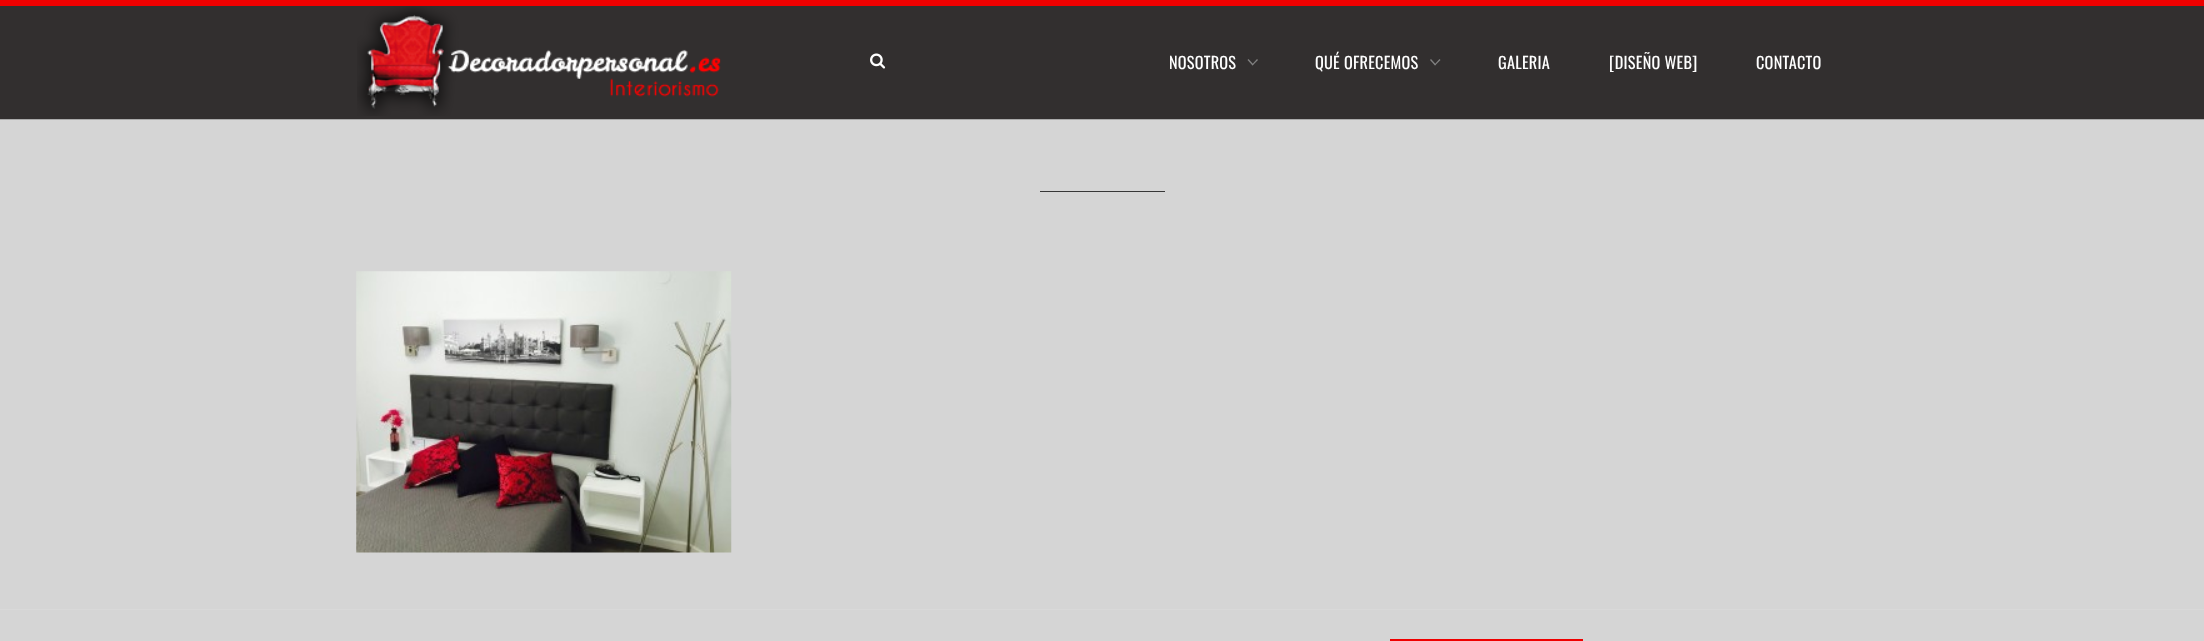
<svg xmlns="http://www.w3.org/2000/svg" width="2204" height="641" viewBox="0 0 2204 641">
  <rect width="100%" height="100%" fill="rgb(213,213,213)"/>
  <rect x="0" y="1" width="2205" height="119" fill="rgba(0,0,0,0.2)" filter="blur(0.5px)"/>
  <rect x="0" y="6" width="2204" height="113" fill="rgb(50,47,47)"/>
  <rect x="0" y="0" width="2204" height="6" fill="rgb(239,0,0)"/>
  <image x="357" y="6" width="364" height="110" href="pic1.png"/>
  <image x="870" y="53" width="16" height="16" href="pic2.png"/>
  <text x="1169" y="69" font-family="Oswald" font-size="16.25" letter-spacing="0.25" fill="rgb(255,255,255)">NOSOTROS</text>
  <path d="M1258 60L1252.5 65.5L1252 64.5L1257 59Z" fill="rgb(129,129,129)"/>
  <path d="M1253.5 64.5L1252.5 65.5L1247.5 60L1248.5 59Z" fill="rgb(129,129,129)"/>
  <text x="1315" y="69" font-family="Oswald" font-size="16.25" letter-spacing="0.25" fill="rgb(255,255,255)">QUÉ OFRECEMOS</text>
  <path d="M1440.5 60L1435 65.5L1434.5 64.5L1439.5 59Z" fill="rgb(129,129,129)"/>
  <path d="M1436 64.5L1435 65.5L1430 60L1431 59Z" fill="rgb(129,129,129)"/>
  <g font-family="Oswald" font-size="16.25" letter-spacing="0.25" fill="rgb(255,255,255)">
    <text x="1498" y="69">GALERIA</text>
    <text x="1609" y="69">[DISEÑO WEB]</text>
    <text x="1756" y="69">CONTACTO</text>
  </g>
  <rect x="1040" y="191" width="125" height="1" fill="rgb(55,55,55)"/>
  <image x="356" y="271" width="376" height="282" href="pic3.png"/>
  <rect x="0" y="609" width="2204" height="1" fill="rgb(217,217,217)"/>
  <rect x="1390" y="639" width="193" height="2" fill="rgb(239,0,0)"/>
</svg>
